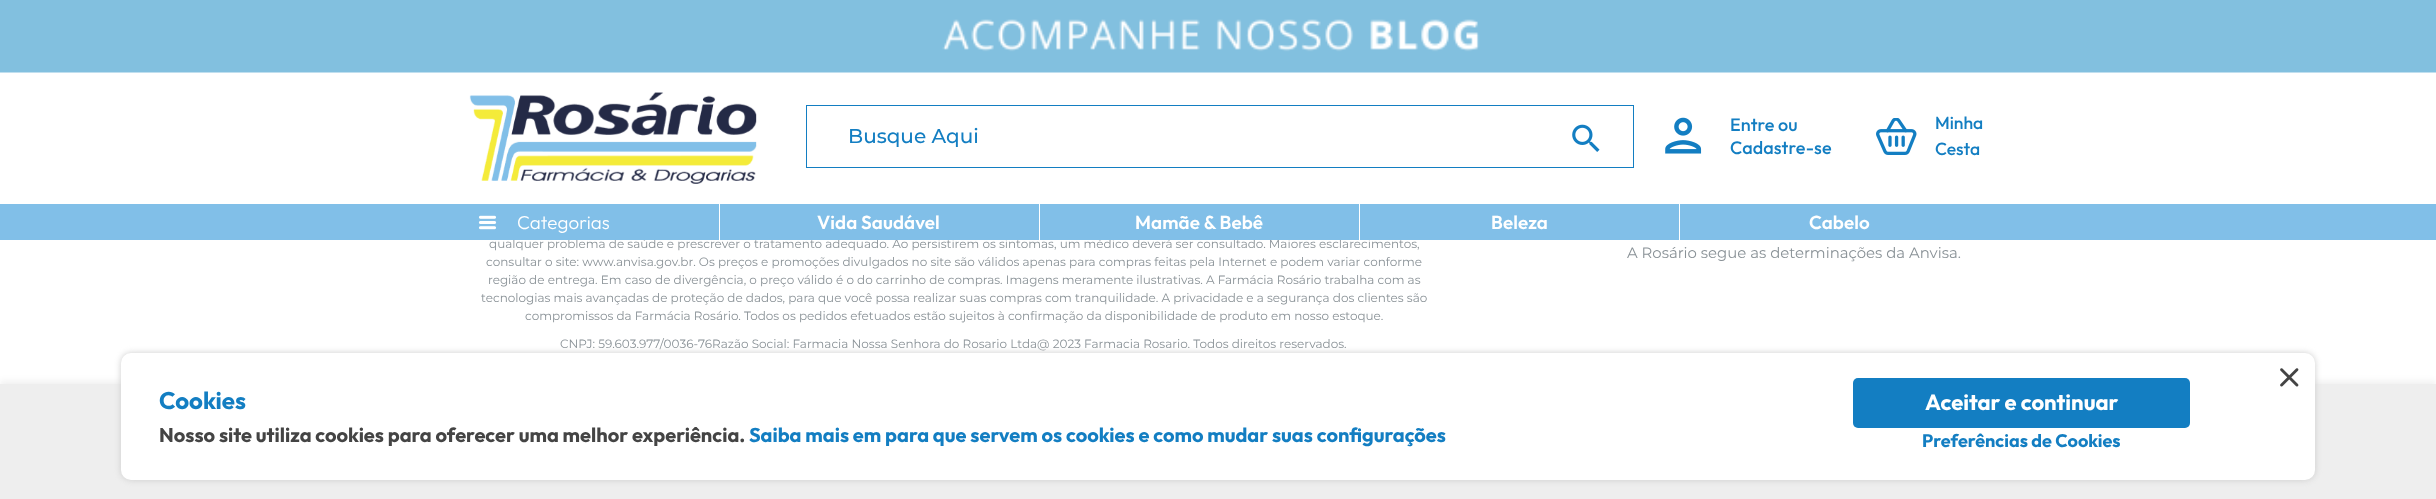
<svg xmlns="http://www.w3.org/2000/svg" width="2436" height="499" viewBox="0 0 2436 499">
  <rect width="100%" height="100%" fill="rgb(255,255,255)"/>
  <image x="0" y="0" width="2436" height="73" href="pic1.png"/>
  <image x="469" y="92" width="288" height="92" href="pic2.png"/>
  <rect x="806.5" y="105.5" width="827" height="62" fill="none" stroke="rgb(19,126,194)"/>
  <text x="848" y="143" font-family="Montserrat" font-size="20" font-weight="500" fill="rgb(19,126,194)">Busque Aqui</text>
  <image x="1572" y="124" width="28" height="28" href="pic3.png"/>
  <image x="1665" y="117" width="37" height="37" href="pic4.png"/>
  <g font-family="Outfit" font-size="18" font-weight="500" letter-spacing="0.1" fill="rgb(19,126,194)">
    <text>
      <tspan x="1730" y="131">Entre ou</tspan>
      <tspan x="1730" y="154">Cadastre-se</tspan>
    </text>
  </g>
  <image x="1876" y="118" width="41" height="37" href="pic5.png"/>
  <g font-family="Outfit" font-size="17.5" font-weight="500" fill="rgb(19,126,194)">
    <text>
      <tspan x="1935" y="129">Minha</tspan>
      <tspan x="1935" y="155">Cesta</tspan>
    </text>
  </g>
  <text x="489" y="248" font-family="Montserrat" font-size="12" fill="rgb(138,146,151)">qualquer problema de saúde e prescrever o tratamento adequado. Ao persistirem os sintomas, um médico deverá ser consultado. Maiores esclarecimentos,</text>
  <rect x="0" y="204" width="2436" height="36" fill="rgb(129,191,232)"/>
  <image x="478" y="215" width="19" height="15" href="pic6.png"/>
  <text x="517" y="229" font-family="Outfit" font-size="18.75" font-weight="300" letter-spacing="0.1" fill="rgb(255,255,255)">Categorias</text>
  <rect x="719" y="204" width="1" height="36" fill="rgb(255,255,255)"/>
  <text x="817" y="229" font-family="Outfit" font-size="18.75" font-weight="600" letter-spacing="0.1" fill="rgb(255,255,255)">Vida Saudável</text>
  <rect x="1039" y="204" width="1" height="36" fill="rgb(255,255,255)"/>
  <text x="1135" y="229" font-family="Outfit" font-size="18.75" font-weight="600" letter-spacing="0.1" fill="rgb(255,255,255)">Mamãe &amp; Bebê</text>
  <rect x="1359" y="204" width="1" height="36" fill="rgb(255,255,255)"/>
  <text x="1491" y="229" font-family="Outfit" font-size="18.75" font-weight="600" letter-spacing="0.1" fill="rgb(255,255,255)">Beleza</text>
  <rect x="1679" y="204" width="1" height="36" fill="rgb(255,255,255)"/>
  <text x="1809" y="229" font-family="Outfit" font-size="18.75" font-weight="600" letter-spacing="0.1" fill="rgb(255,255,255)">Cabelo</text>
  <g font-family="Montserrat" font-size="12" fill="rgb(138,146,151)">
    <text x="486" y="266">consultar o site: www.anvisa.gov.br. Os preços e promoções divulgados no site são válidos apenas para compras feitas pela Internet e podem variar conforme</text>
    <text x="488" y="284">região de entrega. Em caso de divergência, o preço válido é o do carrinho de compras. Imagens meramente ilustrativas. A Farmácia Rosário trabalha com as</text>
    <text x="481" y="302">tecnologias mais avançadas de proteção de dados, para que você possa realizar suas compras com tranquilidade. A privacidade e a segurança dos clientes são</text>
    <text x="525" y="320">compromissos da Farmácia Rosário. Todos os pedidos efetuados estão sujeitos à confirmação da disponibilidade de produto em nosso estoque.</text>
    <text x="560" y="348">CNPJ: 59.603.977/0036-76Razão Social: Farmacia Nossa Senhora do Rosario Ltda@ 2023 Farmacia Rosario. Todos direitos reservados.</text>
  </g>
  <text x="1627" y="258" font-family="Montserrat" font-size="14.9" fill="rgb(138,146,151)">A Rosário segue as determinações da Anvisa.</text>
  <rect x="0" y="381" width="2436" height="117" fill="rgba(0,0,0,0.06)" filter="blur(3px)"/>
  <rect x="0" y="384" width="2436" height="115" fill="rgb(238,238,238)"/>
  <rect x="121" y="353" width="2194" height="127" rx="10" fill="rgb(204,204,204)" filter="blur(3px)"/>
  <rect x="121" y="353" width="2194" height="127" rx="10" fill="rgb(255,255,255)"/>
  <image x="2280" y="368" width="19" height="19" href="pic7.png"/>
  <text x="159" y="409" font-family="Outfit" font-size="24" font-weight="bold" fill="rgb(19,126,194)">Cookies</text>
  <text x="159" y="442" font-family="Outfit" font-size="20" font-weight="bold" fill="rgb(68,68,68)">Nosso site utiliza cookies para oferecer uma melhor experiência.</text>
  <text x="749" y="442" font-family="Outfit" font-size="20" font-weight="bold" fill="rgb(19,126,194)">Saiba mais em para que servem os cookies e como mudar suas configurações</text>
  <rect x="1853" y="378" width="337" height="50" rx="5" fill="rgb(19,126,194)"/>
  <text x="1925" y="410" font-family="Outfit" font-size="22" font-weight="bold" fill="rgb(255,255,255)">Aceitar e continuar</text>
  <text x="1922" y="447" font-family="Outfit" font-size="18" font-weight="bold" fill="rgb(19,126,194)">Preferências de Cookies</text>
</svg>
